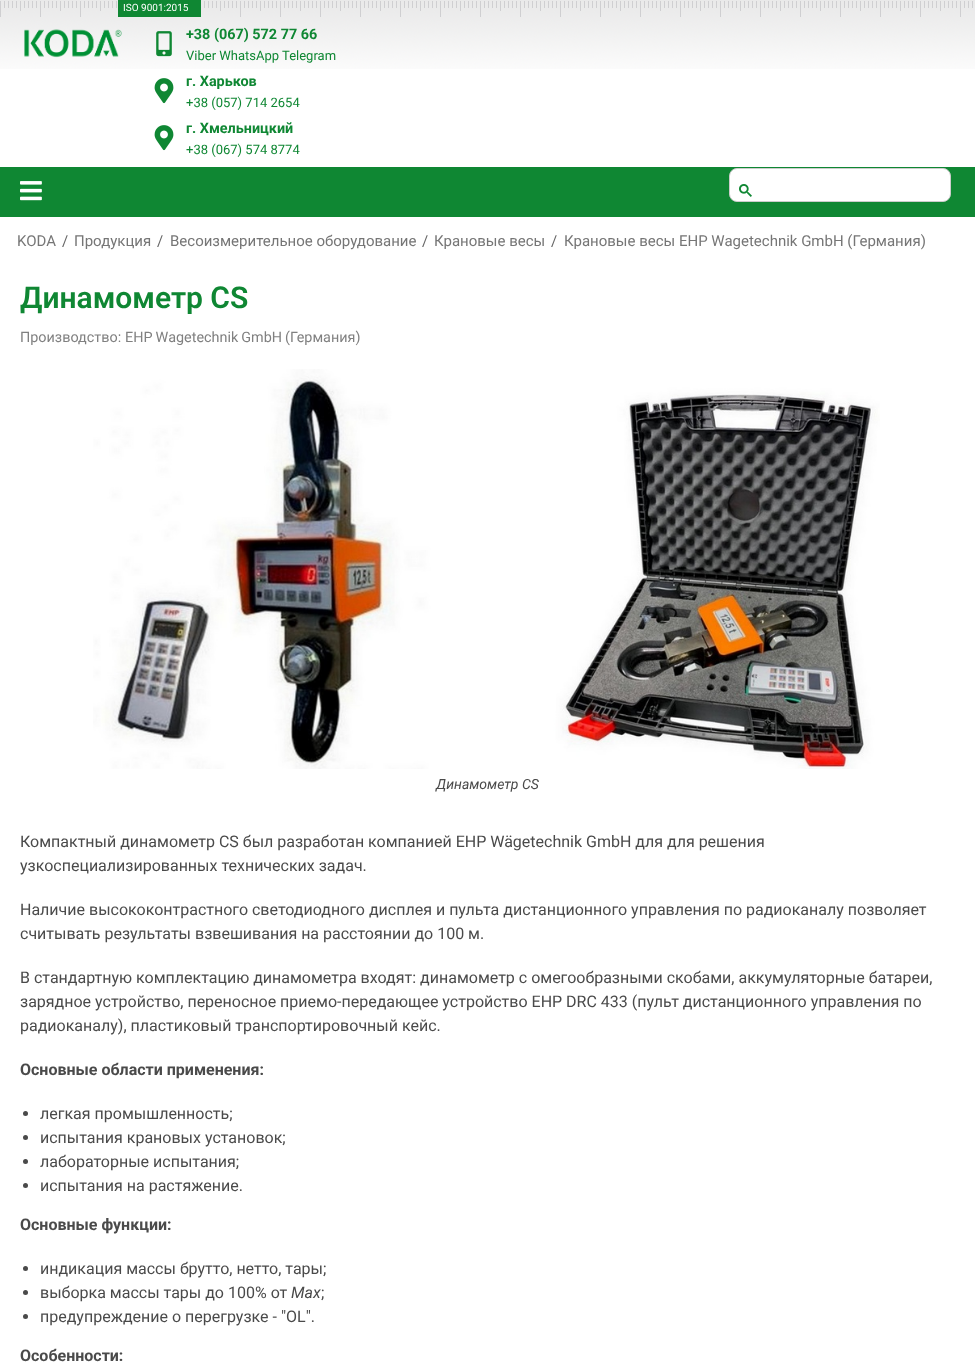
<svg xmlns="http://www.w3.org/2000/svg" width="975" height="1363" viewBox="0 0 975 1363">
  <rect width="100%" height="100%" fill="rgb(255,255,255)"/>
  <image x="0" y="0" width="975" height="69" href="pic1.png"/>
  <rect x="118" y="0" width="83" height="17" fill="rgb(15,135,51)"/>
  <text x="123" y="11" font-family="Roboto" font-size="10" fill="rgb(255,255,255)">ISO 9001:2015</text>
  <image x="24" y="29" width="98" height="29" href="pic2.png"/>
  <image x="156" y="31" width="16" height="26" href="pic3.png"/>
  <text x="186" y="39" font-family="Roboto" font-size="14.4" font-weight="bold" fill="rgb(15,135,51)">+38 (067) 572 77 66</text>
  <text x="186" y="60" font-family="Roboto" font-size="13" fill="rgb(15,135,51)">Viber WhatsApp Telegram</text>
  <image x="154" y="78" width="20" height="26" href="pic4.png"/>
  <text x="186" y="86" font-family="Roboto" font-size="14.4" font-weight="bold" fill="rgb(15,135,51)">г. Харьков</text>
  <text x="186" y="107" font-family="Roboto" font-size="13" fill="rgb(15,135,51)">+38 (057) 714 2654</text>
  <image x="154" y="125" width="20" height="26" href="pic4.png"/>
  <text x="186" y="133" font-family="Roboto" font-size="14.4" font-weight="bold" fill="rgb(15,135,51)">г. Хмельницкий</text>
  <text x="186" y="154" font-family="Roboto" font-size="13" fill="rgb(15,135,51)">+38 (067) 574 8774</text>
  <rect x="0" y="167" width="975" height="50" fill="rgb(15,135,51)"/>
  <image x="20" y="181" width="22" height="20" href="pic5.png"/>
  <rect x="729.5" y="168.5" width="221" height="33" rx="7.5" fill="rgb(255,255,255)" stroke="rgb(204,204,204)"/>
  <image x="739" y="184" width="13" height="13" href="pic6.png"/>
  <text x="17" y="246" font-family="Roboto" font-size="15" fill="rgb(118,118,118)">KODA</text>
  <text x="62" y="246" font-family="Roboto" font-size="15" fill="rgb(102,102,102)">/</text>
  <text x="74" y="246" font-family="Roboto" font-size="15" fill="rgb(118,118,118)">Продукция</text>
  <text x="157" y="246" font-family="Roboto" font-size="15" fill="rgb(102,102,102)">/</text>
  <text x="170" y="246" font-family="Roboto" font-size="15" fill="rgb(118,118,118)">Весоизмерительное оборудование</text>
  <text x="422" y="246" font-family="Roboto" font-size="15" fill="rgb(102,102,102)">/</text>
  <text x="434" y="246" font-family="Roboto" font-size="15" fill="rgb(118,118,118)">Крановые весы</text>
  <text x="551" y="246" font-family="Roboto" font-size="15" fill="rgb(102,102,102)">/</text>
  <text x="564" y="246" font-family="Roboto" font-size="15" fill="rgb(118,118,118)">Крановые весы EHP Wagetechnik GmbH (Германия)</text>
  <text x="20" y="308" font-family="Roboto" font-size="30" font-weight="600" fill="rgb(15,135,51)">Динамометр CS</text>
  <g font-family="Roboto" font-size="14.4" fill="rgb(128,128,128)">
    <text x="20" y="342">Производство:</text>
    <text x="125" y="342" word-spacing="-0.5">EHP Wagetechnik GmbH (Германия)</text>
  </g>
  <image x="93" y="369" width="787" height="400" href="pic7.png"/>
  <text x="436" y="789" font-family="Roboto" font-size="14" font-style="italic" fill="rgb(74,74,74)">Динамометр CS</text>
  <g font-family="Roboto" font-size="16" fill="rgb(74,74,74)">
    <text>
      <tspan x="20" y="847">Компактный динамометр CS был разработан компанией EHP Wägetechnik GmbH для для решения</tspan>
      <tspan x="20" y="871">узкоспециализированных технических задач.</tspan>
    </text>
    <text>
      <tspan x="20" y="915">Наличие высококонтрастного светодиодного дисплея и пульта дистанционного управления по радиоканалу позволяет</tspan>
      <tspan x="20" y="939">считывать результаты взвешивания на расстоянии до 100 м.</tspan>
    </text>
    <text>
      <tspan x="20" y="983">В стандартную комплектацию динамометра входят: динамометр с омегообразными скобами, аккумуляторные батареи,</tspan>
      <tspan x="20" y="1007">зарядное устройство, переносное приемо-передающее устройство ЕНР DRC 433 (пульт дистанционного управления по</tspan>
      <tspan x="20" y="1031">радиоканалу), пластиковый транспортировочный кейс.</tspan>
    </text>
  </g>
  <text x="20" y="1075" font-family="Roboto" font-size="16" font-weight="bold" fill="rgb(74,74,74)">Основные области применения:</text>
  <circle cx="25.5" cy="1113.5" r="2.5" fill="rgb(74,74,74)"/>
  <text x="40" y="1119" font-family="Roboto" font-size="16" fill="rgb(74,74,74)">легкая промышленность;</text>
  <circle cx="25.5" cy="1137.5" r="2.5" fill="rgb(74,74,74)"/>
  <text x="40" y="1143" font-family="Roboto" font-size="16" fill="rgb(74,74,74)">испытания крановых установок;</text>
  <circle cx="25.5" cy="1161.5" r="2.5" fill="rgb(74,74,74)"/>
  <text x="40" y="1167" font-family="Roboto" font-size="16" fill="rgb(74,74,74)">лабораторные испытания;</text>
  <circle cx="25.5" cy="1185.5" r="2.5" fill="rgb(74,74,74)"/>
  <text x="40" y="1191" font-family="Roboto" font-size="16" fill="rgb(74,74,74)">испытания на растяжение.</text>
  <text x="20" y="1230" font-family="Roboto" font-size="16" font-weight="bold" fill="rgb(74,74,74)">Основные функции:</text>
  <circle cx="25.5" cy="1268.5" r="2.5" fill="rgb(74,74,74)"/>
  <text x="40" y="1274" font-family="Roboto" font-size="16" fill="rgb(74,74,74)">индикация массы брутто, нетто, тары;</text>
  <circle cx="25.5" cy="1292.5" r="2.5" fill="rgb(74,74,74)"/>
  <text x="40" y="1298" font-family="Roboto" font-size="16" fill="rgb(74,74,74)">выборка массы тары до 100% от</text>
  <text x="291" y="1298" font-family="Roboto" font-size="16" font-style="italic" fill="rgb(74,74,74)">Max</text>
  <text x="321" y="1298" font-family="Roboto" font-size="16" fill="rgb(74,74,74)">;</text>
  <circle cx="25.5" cy="1316.5" r="2.5" fill="rgb(74,74,74)"/>
  <text x="40" y="1322" font-family="Roboto" font-size="16" fill="rgb(74,74,74)">предупреждение о перегрузке - "OL".</text>
  <text x="20" y="1361" font-family="Roboto" font-size="16" font-weight="bold" fill="rgb(74,74,74)">Особенности:</text>
</svg>
